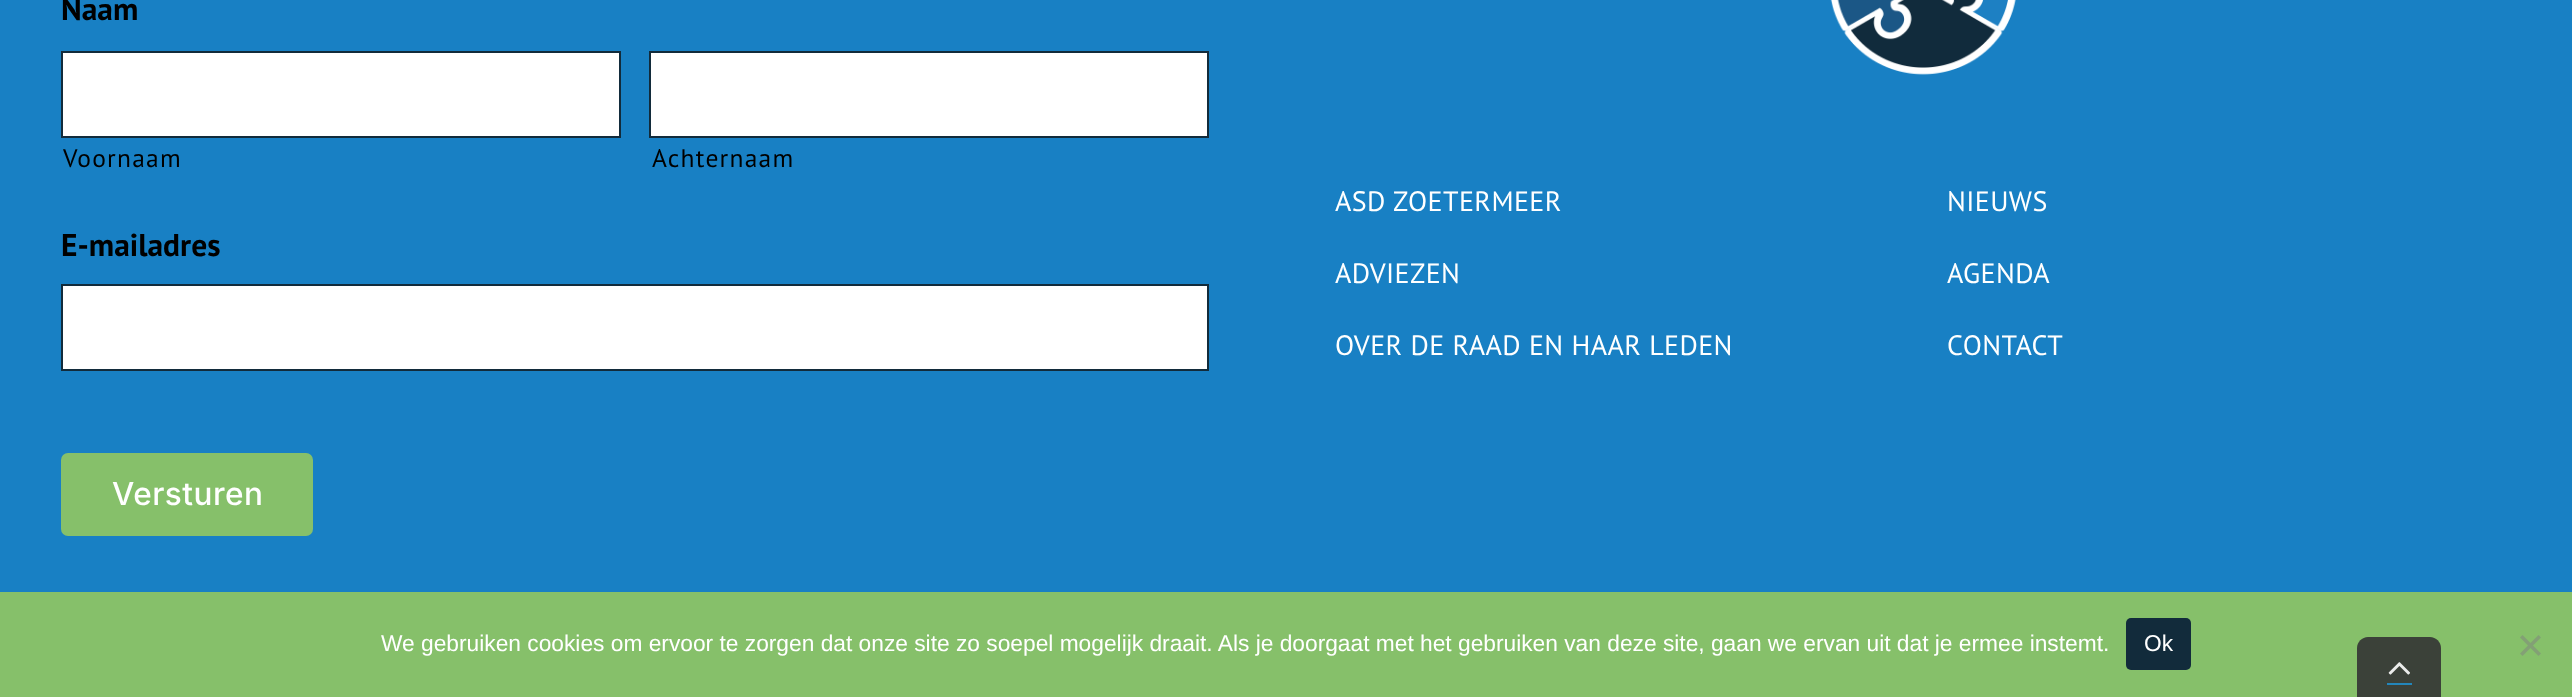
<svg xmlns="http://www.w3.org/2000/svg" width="2572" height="697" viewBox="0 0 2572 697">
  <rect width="100%" height="100%" fill="rgb(24,128,196)"/>
  <text x="61" y="20" font-family="PT Sans" font-size="31.5" font-weight="bold" fill="rgb(0,0,0)">Naam</text>
  <rect x="62" y="52" width="558" height="85" fill="rgb(255,255,255)" stroke="rgb(18,43,59)" stroke-width="2"/>
  <text x="63" y="167" font-family="PT Sans" font-size="25.5" letter-spacing="1.25" fill="rgb(0,0,0)">Voornaam</text>
  <rect x="650" y="52" width="558" height="85" fill="rgb(255,255,255)" stroke="rgb(18,43,59)" stroke-width="2"/>
  <text x="652" y="167" font-family="PT Sans" font-size="25.5" letter-spacing="1.25" fill="rgb(0,0,0)">Achternaam</text>
  <text x="61" y="256" font-family="PT Sans" font-size="31.5" font-weight="bold" fill="rgb(0,0,0)">E-mailadres</text>
  <rect x="62" y="285" width="1146" height="85" fill="rgb(255,255,255)" stroke="rgb(18,43,59)" stroke-width="2"/>
  <rect x="61" y="453" width="252" height="83" rx="7" fill="rgb(134,192,106)"/>
  <text x="112" y="505" font-family="Inter" font-size="31.5" font-weight="500" letter-spacing="0.5" fill="rgb(255,255,255)">Versturen</text>
  <image x="1830" y="0" width="186" height="75" href="pic1.png"/>
  <g font-family="PT Sans" font-size="28" letter-spacing="0.4" fill="rgb(255,255,255)">
    <text x="1335" y="211">ASD ZOETERMEER</text>
    <text x="1335" y="283">ADVIEZEN</text>
    <text x="1335" y="355">OVER DE RAAD EN HAAR LEDEN</text>
    <text x="1947" y="211">NIEUWS</text>
    <text x="1947" y="283">AGENDA</text>
    <text x="1947" y="355">CONTACT</text>
  </g>
  <rect x="0" y="592" width="2572" height="105" fill="rgb(134,192,106)"/>
  <text x="381" y="651" font-family="Liberation Sans" font-size="22.75" fill="rgb(255,255,255)">We gebruiken cookies om ervoor te zorgen dat onze site zo soepel mogelijk draait. Als je doorgaat met het gebruiken van deze site, gaan we ervan uit dat je ermee instemt.</text>
  <rect x="2126" y="618" width="65" height="52" rx="5" fill="rgb(18,43,59)"/>
  <text x="2144" y="651" font-family="Liberation Sans" font-size="22.75" fill="rgb(255,255,255)">Ok</text>
  <path d="M2538.5 635L2541 637.5L2522.5 656L2520 653.5Z" fill="rgb(131,160,117)"/>
  <path d="M2520 637.5L2522.5 635L2541 653.5L2538.5 656Z" fill="rgb(131,160,117)"/>
  <path d="M2368 637H2430C2436 637 2441 642 2441 648V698H2357V648C2357 642 2362 637 2368 637Z" fill="rgb(59,65,57)"/>
  <image x="2388" y="662" width="22" height="13" href="pic2.png"/>
  <rect x="2387" y="683" width="25" height="2" fill="rgb(35,134,187)"/>
</svg>
